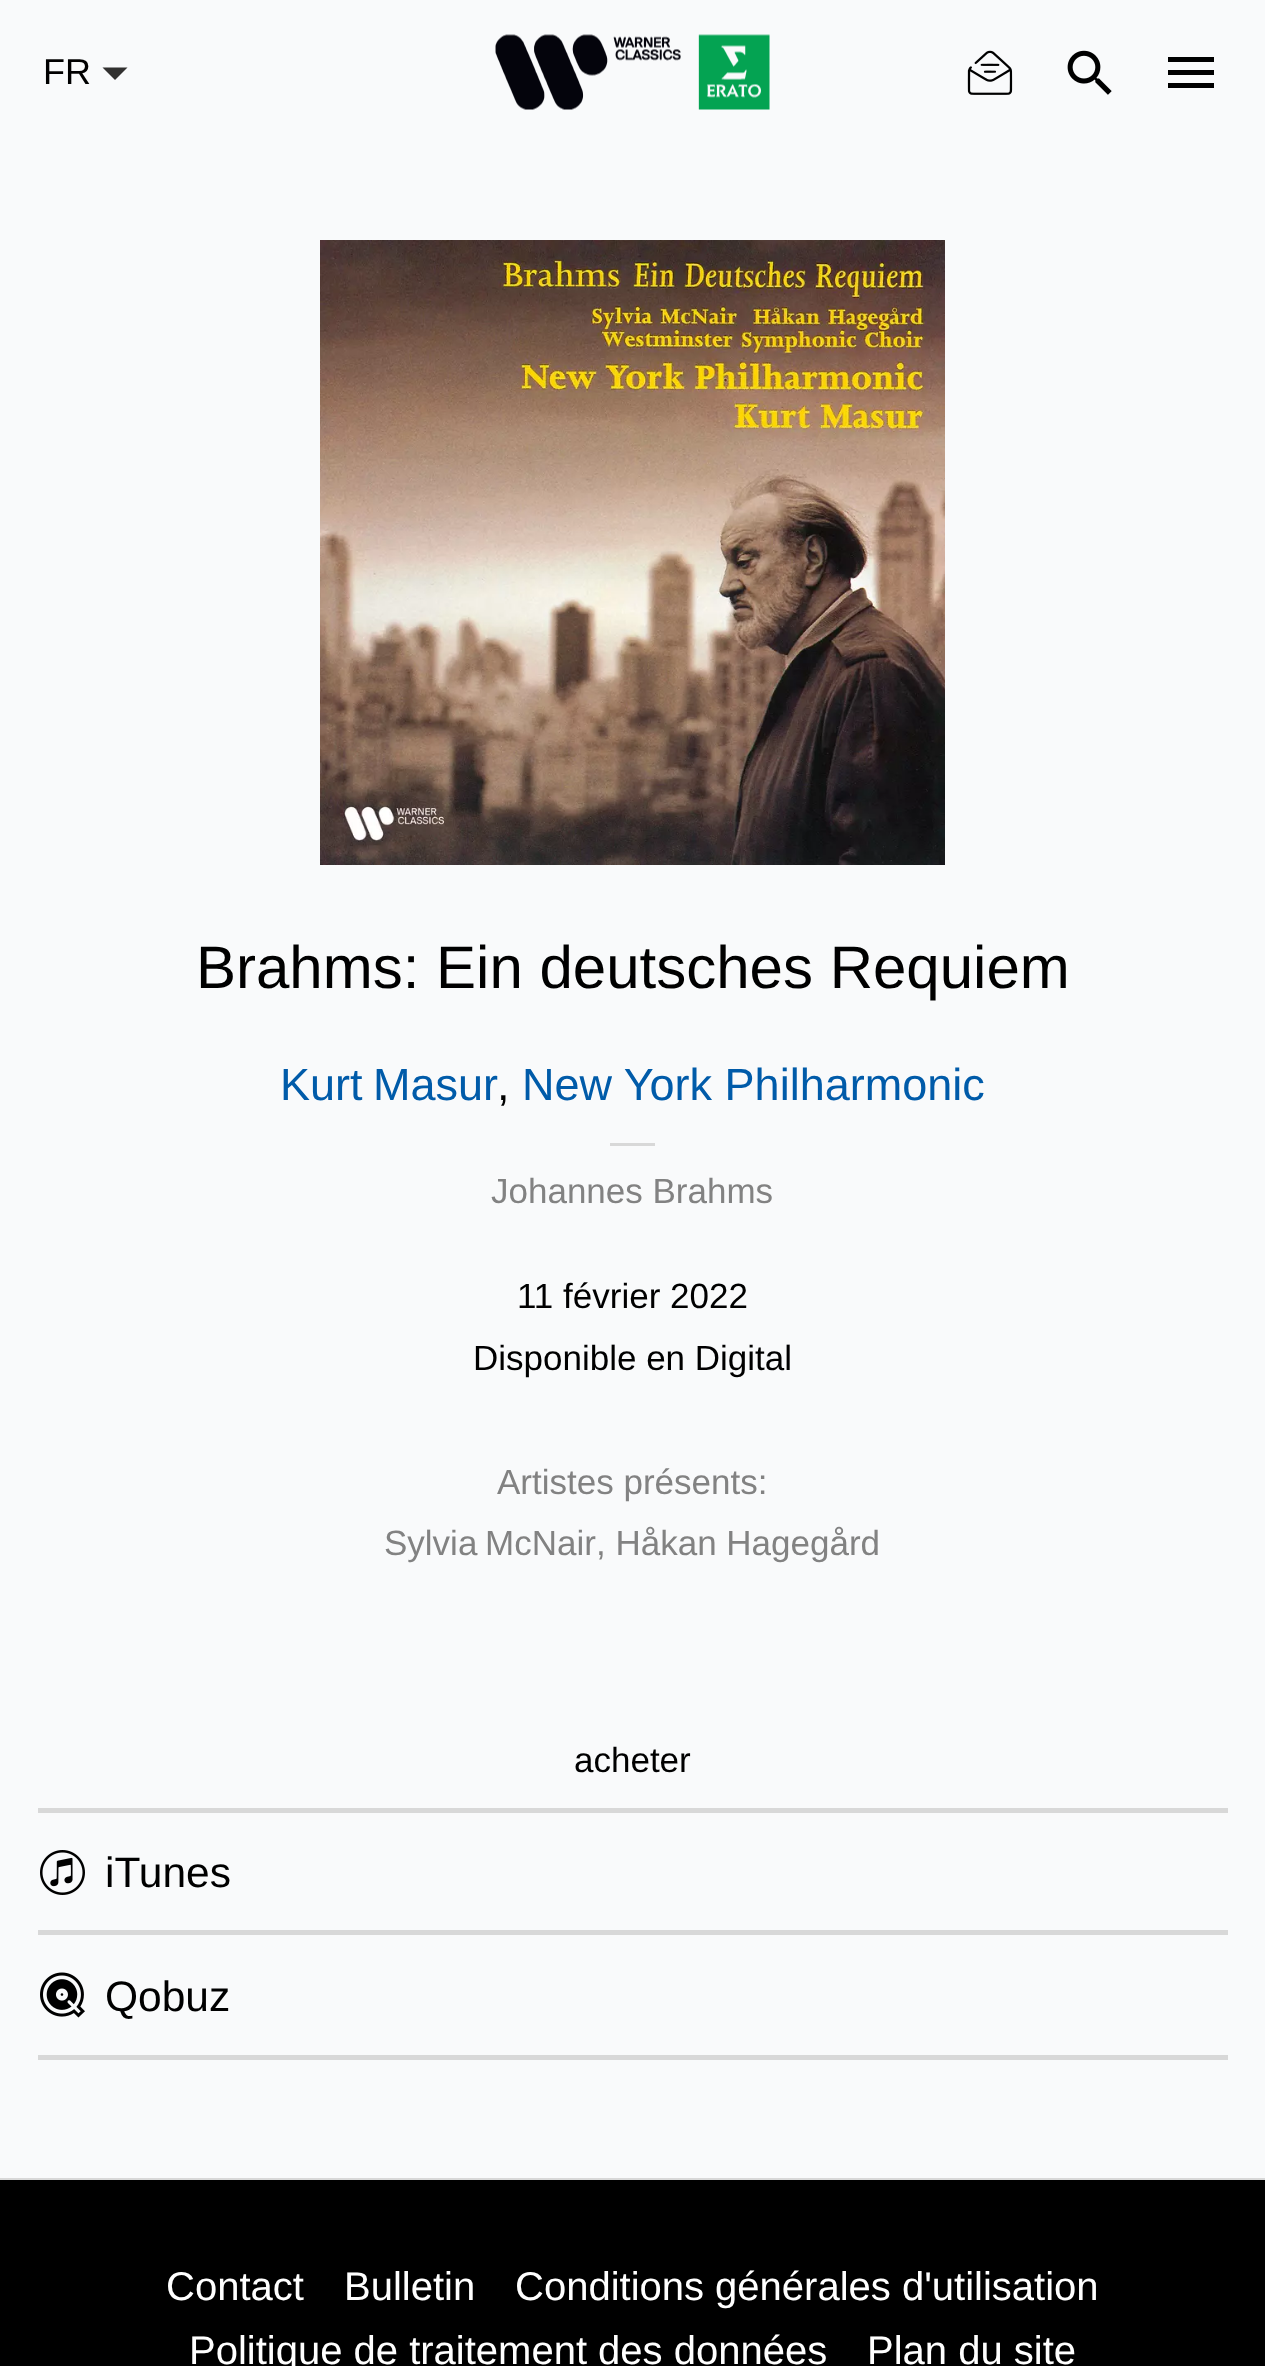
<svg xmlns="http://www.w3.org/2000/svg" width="1265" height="2366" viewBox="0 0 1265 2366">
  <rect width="100%" height="100%" fill="rgb(249,250,251)"/>
  <text x="43" y="84" font-family="Liberation Sans" font-size="36" fill="rgb(0,0,0)">FR</text>
  <path d="M102.5 67.5H127.5L115 80Z" fill="rgb(50,49,48)"/>
  <image x="495" y="34" width="275" height="76" href="pic1.png"/>
  <image x="967" y="50" width="46" height="45" href="pic2.png"/>
  <image x="1067" y="50" width="45" height="45" href="pic3.png"/>
  <path d="M1168 88H1214V83H1168ZM1168 75H1214V70H1168ZM1168 57V62H1214V57Z" fill="rgb(0,0,0)"/>
  <image x="320" y="240" width="625" height="625" href="pic4.png"/>
  <text x="196" y="988" font-family="Liberation Sans" font-size="60" fill="rgb(0,0,0)">Brahms: Ein deutsches Requiem</text>
  <text x="280" y="1100" word-spacing="-2" font-family="Liberation Sans" font-size="45" fill="rgb(0,91,169)">Kurt Masur</text>
  <text x="497" y="1100" font-family="Liberation Sans" font-size="45" fill="rgb(0,0,0)">,</text>
  <text x="522" y="1100" font-family="Liberation Sans" font-size="45" fill="rgb(0,91,169)">New York Philharmonic</text>
  <rect x="610" y="1143" width="45" height="3" fill="rgb(216,216,216)"/>
  <text x="491" y="1203" font-family="Liberation Sans" font-size="35" fill="rgb(130,130,130)">Johannes Brahms</text>
  <g font-family="Liberation Sans" font-size="35" fill="rgb(0,0,0)">
    <text x="517" y="1308">11 février 2022</text>
    <text x="473" y="1370">Disponible en Digital</text>
  </g>
  <g font-family="Liberation Sans" font-size="35" fill="rgb(130,130,130)">
    <text x="497" y="1494">Artistes présents:</text>
    <text x="384" y="1555" word-spacing="-2">Sylvia McNair</text>
    <text x="596" y="1555">, Håkan Hagegård</text>
  </g>
  <rect x="0" y="2178" width="1265" height="2" fill="rgb(216,216,216)"/>
  <text x="574" y="1772" font-family="Liberation Sans" font-size="35" fill="rgb(0,0,0)">acheter</text>
  <rect x="38" y="1808" width="1190" height="5" fill="rgb(216,216,216)"/>
  <rect x="38" y="1930" width="1190" height="5" fill="rgb(216,216,216)"/>
  <image x="40" y="1850" width="45" height="45" href="pic5.png"/>
  <text x="105" y="1887" font-family="Liberation Sans" font-size="42.5" fill="rgb(0,0,0)">iTunes</text>
  <rect x="38" y="2055" width="1190" height="5" fill="rgb(216,216,216)"/>
  <image x="40" y="1972" width="45" height="46" href="pic6.png"/>
  <text x="105" y="2011" font-family="Liberation Sans" font-size="42.5" fill="rgb(0,0,0)">Qobuz</text>
  <rect x="0" y="2180" width="1265" height="186" fill="rgb(0,0,0)"/>
  <g font-family="Liberation Sans" font-size="40" fill="rgb(255,255,255)">
    <text x="166" y="2300">Contact</text>
    <text x="344" y="2300">Bulletin</text>
    <text x="515" y="2300">Conditions générales d'utilisation</text>
    <text x="189" y="2364">Politique de traitement des données</text>
    <text x="867" y="2364">Plan du site</text>
  </g>
</svg>
